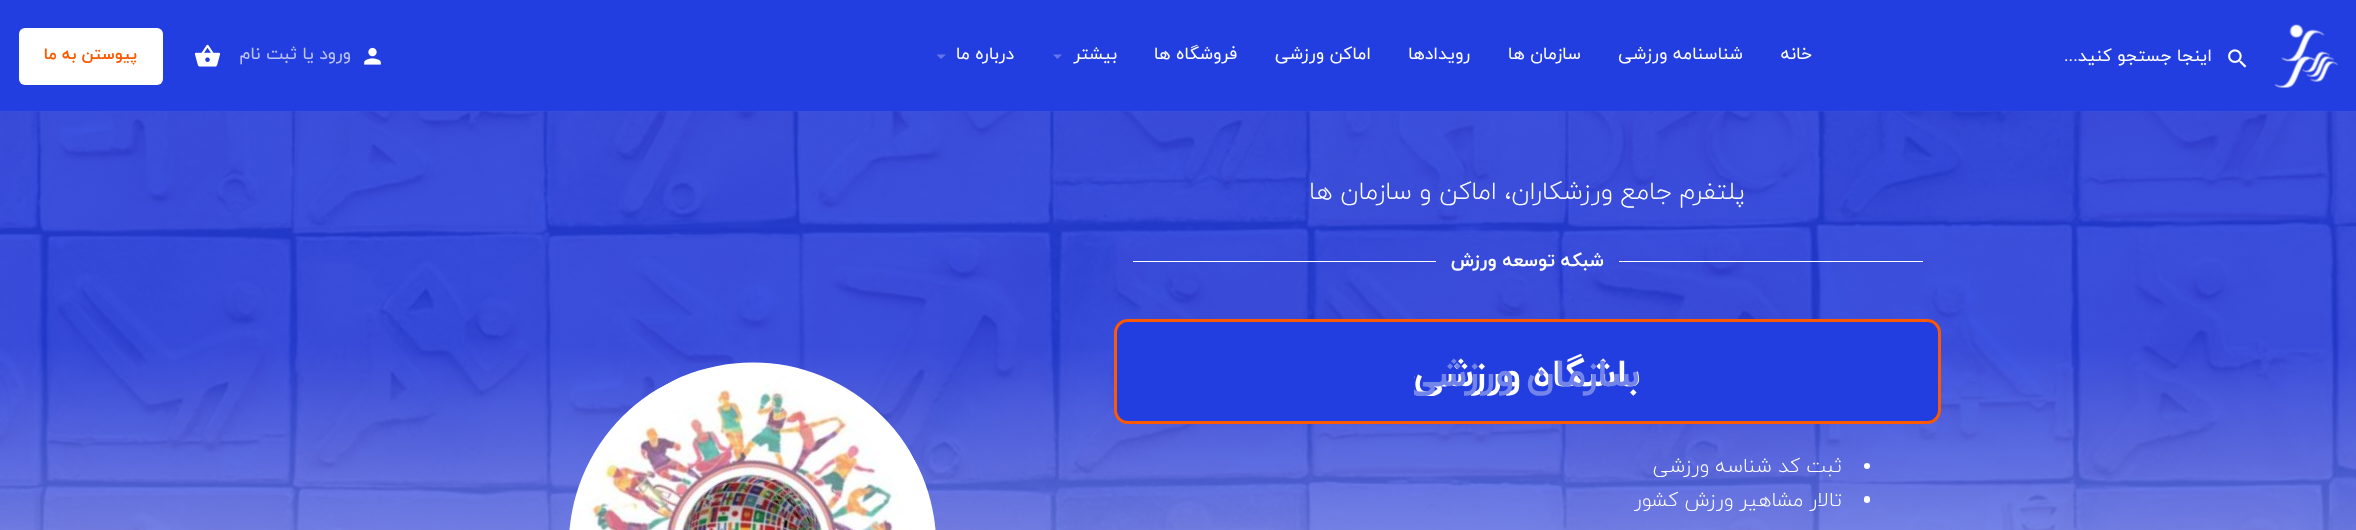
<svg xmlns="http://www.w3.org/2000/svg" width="2356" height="530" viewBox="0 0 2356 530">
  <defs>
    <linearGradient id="g1" gradientUnits="userSpaceOnUse" x1="1178" y1="111" x2="1178" y2="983"><stop offset="0.27" stop-color="rgb(34,61,224)" stop-opacity="0.88"/><stop offset="1" stop-color="rgb(255,255,255)" stop-opacity="0.88"/></linearGradient>
    <clipPath id="clip1"><rect x="1414" y="346" width="226" height="63"/></clipPath>
  </defs>
  <rect width="100%" height="100%" fill="rgb(255,255,255)"/>
  <rect x="0" y="0" width="2356" height="111" fill="rgb(34,61,224)"/>
  <image x="2274" y="24" width="64" height="64" href="pic1.png"/>
  <image x="2228" y="49" width="19" height="19" href="pic2.png"/>
  <g font-family="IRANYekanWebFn" font-size="17.5" direction="rtl" fill="rgb(255,255,255)">
    <text x="2212" y="61">اینجا جستجو کنید...</text>
    <text x="1812" y="59">خانه</text>
    <text x="1743" y="59">شناسنامه ورزشی</text>
    <text x="1581" y="59">سازمان ها</text>
    <text x="1470" y="59">رویدادها</text>
    <text x="1371" y="59">اماکن ورزشی</text>
    <text x="1237" y="59">فروشگاه ها</text>
    <text x="1117" y="59">بیشتر</text>
  </g>
  <path d="M1053 54.5H1062L1057.5 59Z" fill="rgb(100,119,233)"/>
  <text x="1014" y="59" font-family="IRANYekanWebFn" font-size="17.5" direction="rtl" fill="rgb(255,255,255)">درباره ما</text>
  <path d="M936.5 54.5H946L941 59Z" fill="rgb(100,119,233)"/>
  <image x="364" y="47" width="17" height="18" href="pic3.png"/>
  <g font-family="IRANYekanWebFn" font-size="17.5" direction="rtl" fill="rgb(189,197,246)">
    <text x="351" y="59">ورود</text>
    <text x="314" y="59">یا</text>
    <text x="297" y="59">ثبت نام</text>
  </g>
  <image x="194" y="44" width="27" height="23" href="pic4.png"/>
  <rect x="19" y="28" width="144" height="57" rx="6" fill="rgb(255,255,255)"/>
  <text x="137" y="59" font-family="IRANYekanWebFn" font-size="16.25" font-weight="bold" direction="rtl" fill="rgb(253,89,1)">پیوستن به ما</text>
  <image x="0" y="111" width="2356" height="419" href="pic5.png"/>
  <rect x="0" y="111" width="2356" height="419" fill="url(#g1)"/>
  <text x="1745" y="199" font-family="IRANYekanWebFn" font-size="25" font-weight="300" direction="rtl" fill="rgb(255,255,255)">پلتفرم جامع ورزشکاران، اماکن و سازمان ها</text>
  <rect x="1619" y="261" width="304" height="1" fill="rgb(255,255,255)"/>
  <text x="1604" y="266" font-family="IRANYekanWebFn" font-size="18.75" font-weight="bold" direction="rtl" fill="rgb(255,255,255)">شبکه توسعه ورزش</text>
  <rect x="1133" y="261" width="303" height="1" fill="rgb(255,255,255)"/>
  <rect x="1115.5" y="320.5" width="824" height="102" rx="12.5" fill="rgb(34,61,224)" stroke="rgb(253,89,1)" stroke-width="3"/>
  <text x="1640" y="386" font-family="IRANYekanWebFn" font-size="38.75" font-weight="bold" direction="rtl" fill="rgb(255,255,255)">باشگاه ورزشی</text>
  <g clip-path="url(#clip1)">
    <text x="1640" y="386" font-family="IRANYekanWebFn" font-size="38.75" font-weight="bold" direction="rtl" fill="rgb(115,132,235)">سازمان ورزشی</text>
  </g>
  <circle cx="1867" cy="466" r="3" fill="rgb(255,255,255)"/>
  <text x="1842" y="472" font-family="IRANYekanWebFn" font-size="20" font-weight="300" direction="rtl" fill="rgb(255,255,255)">ثبت کد شناسه ورزشی</text>
  <rect x="1864" y="496" width="6" height="7" rx="3" fill="rgb(255,255,255)"/>
  <text x="1842" y="506" font-family="IRANYekanWebFn" font-size="20" font-weight="300" direction="rtl" fill="rgb(255,255,255)">تالار مشاهیر ورزش کشور</text>
  <image x="569" y="362" width="367" height="168" href="pic6.png"/>
</svg>
